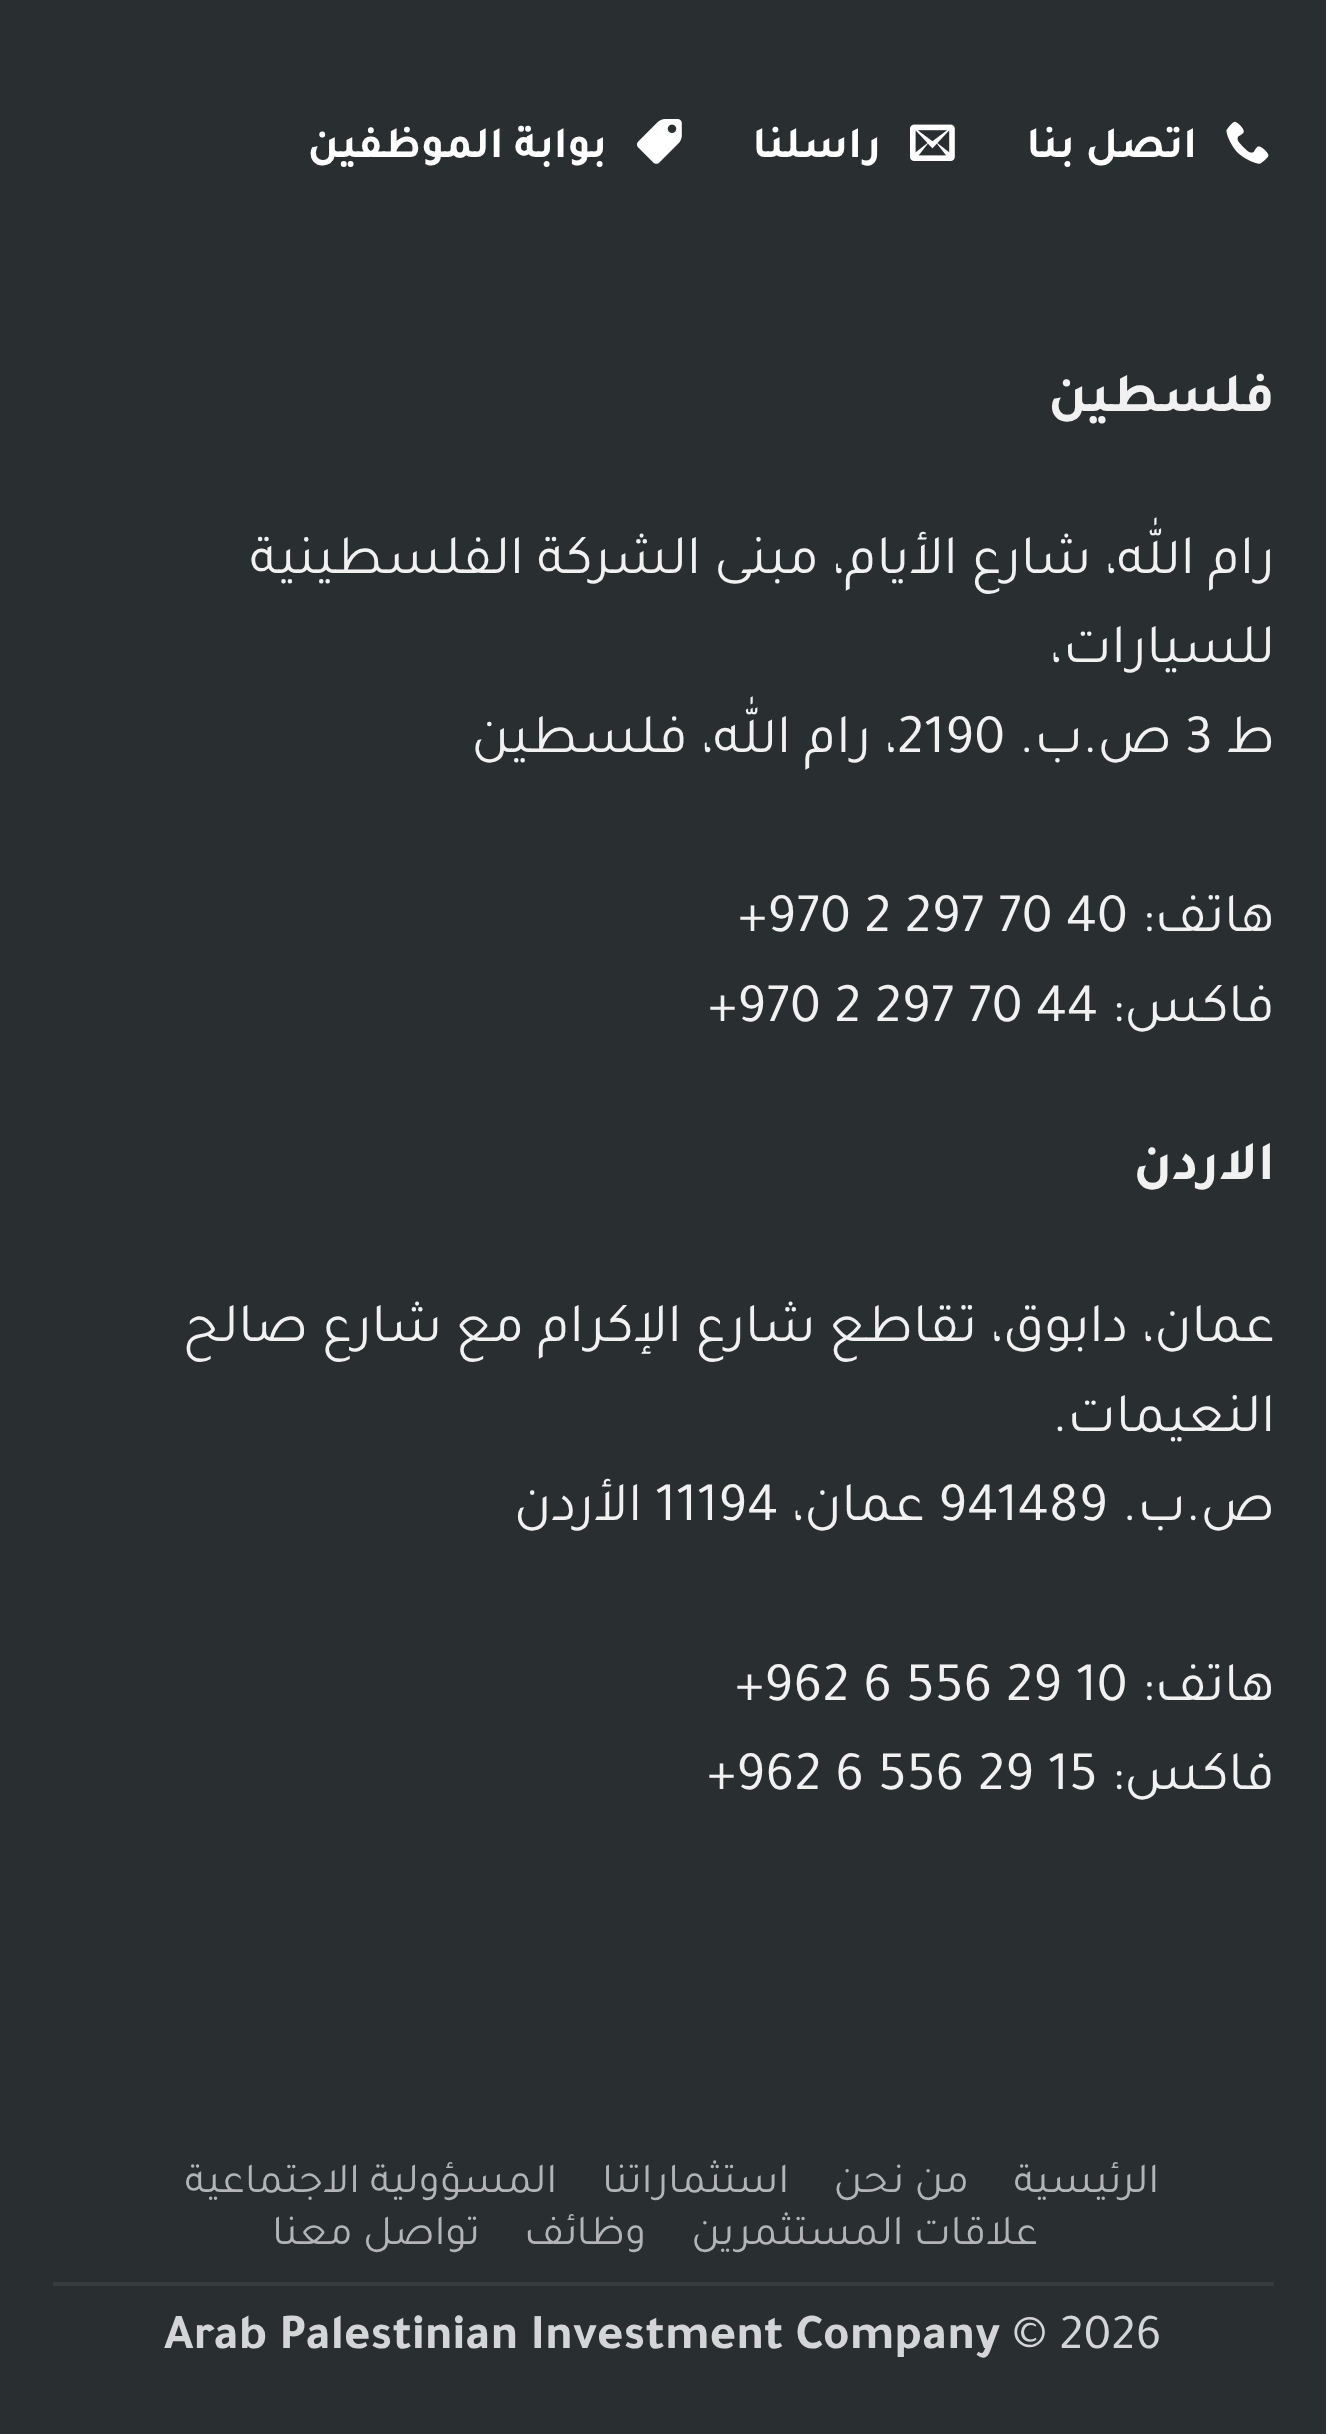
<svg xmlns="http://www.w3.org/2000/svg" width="1326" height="2434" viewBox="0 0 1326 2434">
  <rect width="100%" height="100%" fill="rgb(41,47,49)"/>
  <image x="1226" y="121" width="43" height="43" href="pic1.png"/>
  <text x="1197" y="157" font-family="Tajawal" font-size="44.75" font-weight="bold" direction="rtl" fill="rgb(255,255,255)">اتصل بنا</text>
  <image x="910" y="124" width="45" height="37" href="pic2.png"/>
  <text x="881" y="157" font-family="Tajawal" font-size="44.75" font-weight="bold" direction="rtl" fill="rgb(255,255,255)">راسلنا</text>
  <image x="637" y="119" width="45" height="45" href="pic3.png"/>
  <text x="607" y="157" font-family="Tajawal" font-size="44.75" font-weight="bold" direction="rtl" fill="rgb(255,255,255)">بوابة الموظفين</text>
  <text x="1275" y="411" font-family="Tajawal" font-size="56" font-weight="bold" direction="rtl" fill="rgb(241,241,241)">فلسطين</text>
  <g font-family="Tajawal" font-size="56" direction="rtl" fill="rgb(241,241,241)">
    <text>
      <tspan x="1275" y="573">رام الله، شارع الأيام، مبنى الشركة الفلسطينية</tspan>
      <tspan x="1275" y="662">للسيارات</tspan>
    </text>
  </g>
  <text x="1050" y="662" font-family="Tajawal" font-size="56" fill="rgb(241,241,241)">،</text>
  <text x="1275" y="752" font-family="Tajawal" font-size="56" direction="rtl" fill="rgb(241,241,241)">ط</text>
  <text x="1185" y="752" font-family="Tajawal" font-size="56" fill="rgb(241,241,241)">3</text>
  <text x="1172" y="752" font-family="Tajawal" font-size="56" direction="rtl" fill="rgb(241,241,241)">ص.ب.</text>
  <text x="897" y="752" font-family="Tajawal" font-size="56" fill="rgb(241,241,241)">2190</text>
  <g font-family="Tajawal" font-size="56" direction="rtl" fill="rgb(241,241,241)">
    <text x="897" y="752">، رام الله، فلسطين</text>
    <text x="1275" y="931">هاتف:</text>
  </g>
  <text x="738" y="931" font-family="Tajawal" font-size="56" fill="rgb(241,241,241)">+970 2 297 70 40</text>
  <text x="1275" y="1021" font-family="Tajawal" font-size="56" direction="rtl" fill="rgb(241,241,241)">فاكس:</text>
  <text x="708" y="1021" font-family="Tajawal" font-size="56" fill="rgb(241,241,241)">+970 2 297 70 44</text>
  <text x="1275" y="1179" font-family="Tajawal" font-size="56" font-weight="bold" direction="rtl" fill="rgb(241,241,241)">الاردن</text>
  <g font-family="Tajawal" font-size="56" direction="rtl" fill="rgb(241,241,241)">
    <text x="1275" y="1341">عمان، دابوق،</text>
    <text x="977" y="1341">تقاطع شارع الإكرام مع شارع صالح</text>
    <text>
      <tspan x="1275" y="1431">النعيمات.</tspan>
      <tspan x="1275" y="1520">ص.ب.</tspan>
    </text>
  </g>
  <text x="938" y="1520" font-family="Tajawal" font-size="56" fill="rgb(241,241,241)">941489</text>
  <text x="925" y="1520" font-family="Tajawal" font-size="56" direction="rtl" fill="rgb(241,241,241)">عمان،</text>
  <text x="655" y="1520" font-family="Tajawal" font-size="56" fill="rgb(241,241,241)">11194</text>
  <g font-family="Tajawal" font-size="56" direction="rtl" fill="rgb(241,241,241)">
    <text x="642" y="1520">الأردن</text>
    <text x="1275" y="1700">هاتف:</text>
  </g>
  <text x="735" y="1700" font-family="Tajawal" font-size="56" fill="rgb(241,241,241)">+962 6 556 29 10</text>
  <text x="1275" y="1789" font-family="Tajawal" font-size="56" direction="rtl" fill="rgb(241,241,241)">فاكس:</text>
  <text x="707" y="1789" font-family="Tajawal" font-size="56" fill="rgb(241,241,241)">+962 6 556 29 15</text>
  <rect x="53" y="2282" width="1221" height="4" fill="rgb(55,60,62)"/>
  <g font-family="Tajawal" font-size="42.75" direction="rtl" fill="rgb(178,180,181)">
    <text x="1159" y="2192">الرئيسية</text>
    <text x="969" y="2192">من نحن</text>
    <text x="789" y="2192">استثماراتنا</text>
    <text x="557" y="2192">المسؤولية الاجتماعية</text>
    <text x="1038" y="2244">علاقات المستثمرين</text>
    <text x="646" y="2244">وظائف</text>
    <text x="480" y="2244">تواصل معنا</text>
  </g>
  <text x="1012" y="2348" font-family="Tajawal" font-size="50.4" fill="rgb(212,213,214)">© 2026</text>
  <text x="164" y="2348" font-family="Tajawal" font-size="50.4" font-weight="bold" fill="rgb(212,213,214)">Arab Palestinian Investment Company</text>
</svg>
